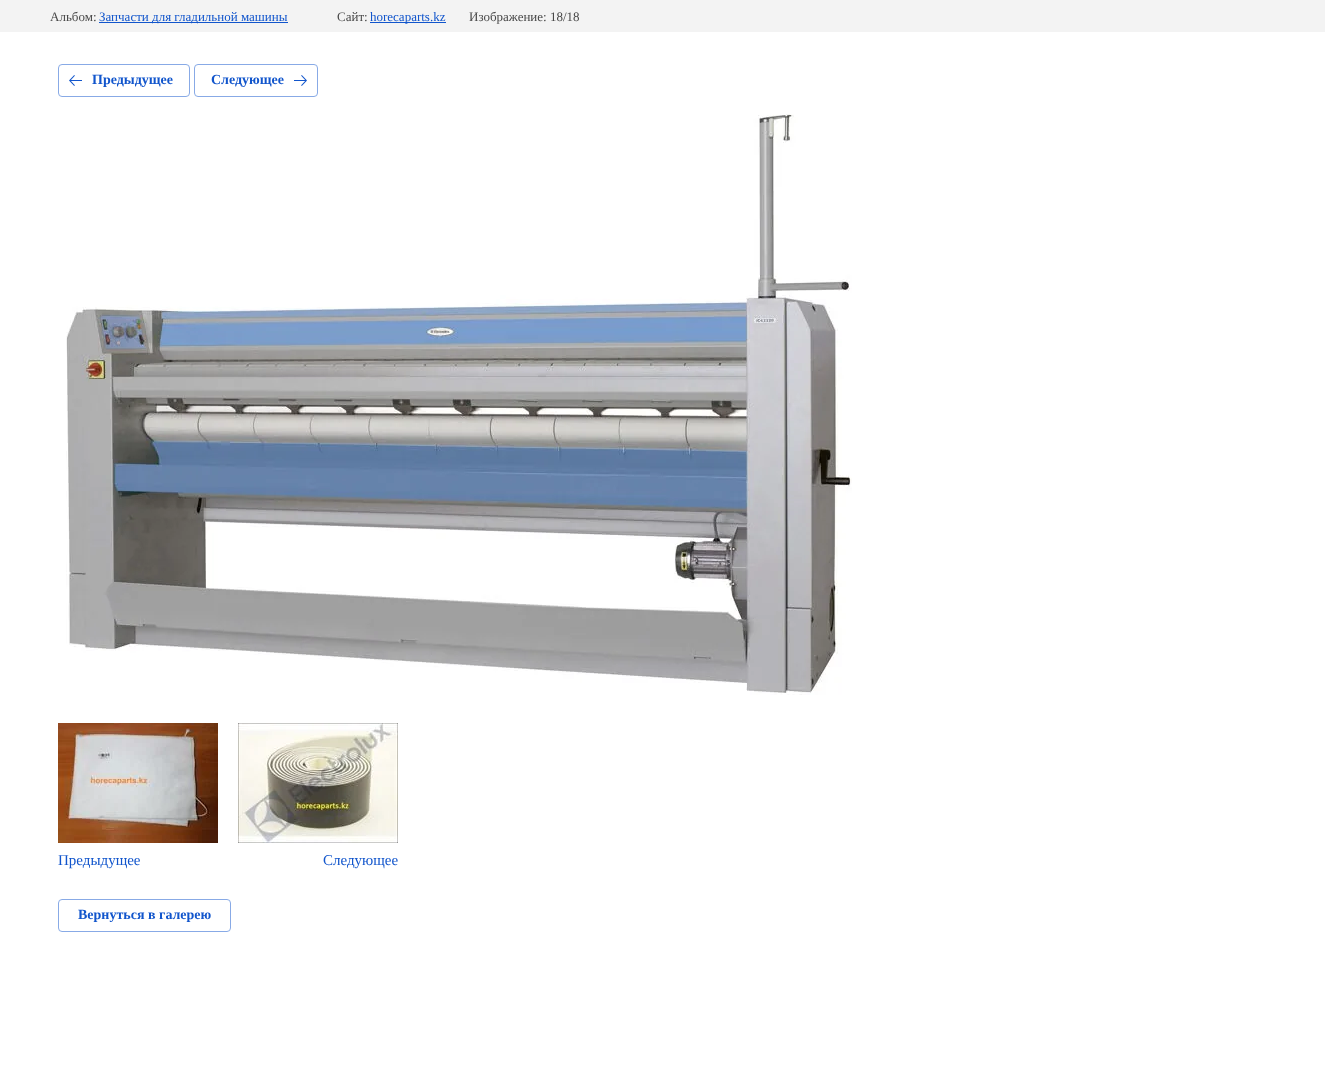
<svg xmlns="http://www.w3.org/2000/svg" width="1325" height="1067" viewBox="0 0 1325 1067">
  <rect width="100%" height="100%" fill="rgb(255,255,255)"/>
  <rect x="0" y="0" width="1325" height="32" fill="rgb(243,243,243)"/>
  <text x="50" y="21" font-family="Liberation Serif" font-size="13" fill="rgb(72,72,72)">Альбом:</text>
  <rect x="99" y="22" width="189" height="1" fill="rgb(17,85,204)"/>
  <text x="99" y="21" font-family="Liberation Serif" font-size="13" fill="rgb(17,85,204)">Запчасти для гладильной машины</text>
  <text x="337" y="21" font-family="Liberation Serif" font-size="13" fill="rgb(72,72,72)">Сайт:</text>
  <rect x="370" y="22" width="76" height="1" fill="rgb(17,85,204)"/>
  <text x="370" y="21" font-family="Liberation Serif" font-size="13" fill="rgb(17,85,204)">horecaparts.kz</text>
  <text x="469" y="21" font-family="Liberation Serif" font-size="13" fill="rgb(72,72,72)">Изображение: 18/18</text>
  <rect x="58.5" y="64.5" width="131" height="32" rx="3.5" fill="none" stroke="rgb(136,170,230)"/>
  <image x="69" y="75" width="13" height="11" href="pic1.png"/>
  <text x="92" y="84" font-family="Liberation Serif" font-size="14" font-weight="bold" fill="rgb(17,85,204)">Предыдущее</text>
  <rect x="194.5" y="64.5" width="123" height="32" rx="3.5" fill="none" stroke="rgb(136,170,230)"/>
  <text x="211" y="84" font-family="Liberation Serif" font-size="14" font-weight="bold" fill="rgb(17,85,204)">Следующее</text>
  <image x="294" y="75" width="13" height="11" href="pic2.png"/>
  <image x="66" y="114" width="786" height="581" href="pic3.png"/>
  <image x="58" y="723" width="160" height="120" href="pic4.png"/>
  <text x="58" y="865" font-family="Liberation Serif" font-size="15" fill="rgb(17,85,204)">Предыдущее</text>
  <image x="238" y="723" width="160" height="120" href="pic5.png"/>
  <text x="323" y="865" font-family="Liberation Serif" font-size="15" fill="rgb(17,85,204)">Следующее</text>
  <rect x="58.5" y="899.5" width="172" height="32" rx="3.5" fill="none" stroke="rgb(136,170,230)"/>
  <text x="78" y="919" font-family="Liberation Serif" font-size="14" font-weight="bold" fill="rgb(17,85,204)">Вернуться в галерею</text>
</svg>
